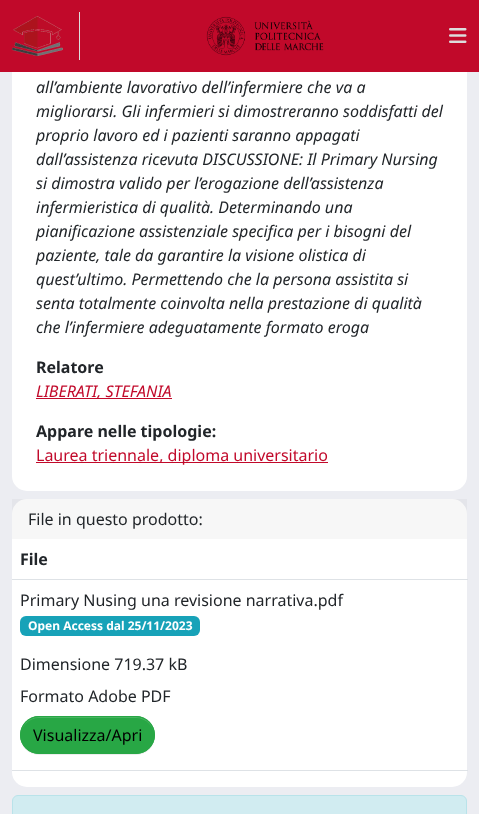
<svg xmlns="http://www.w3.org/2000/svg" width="479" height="814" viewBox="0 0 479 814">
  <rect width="100%" height="100%" fill="rgb(236,237,242)"/>
  <rect x="12" y="-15" width="455" height="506" rx="15" fill="rgb(255,255,255)"/>
  <rect x="0" y="0" width="479" height="72" fill="rgb(193,9,42)"/>
  <rect x="79" y="12" width="1" height="48" fill="rgb(221,221,221)"/>
  <image x="12" y="16" width="51" height="40" href="pic1.png"/>
  <image x="206" y="16" width="118" height="40" href="pic2.png"/>
  <image x="449" y="28" width="18" height="15" href="pic3.png"/>
  <g font-family="Noto Sans" font-size="16" font-style="italic" fill="rgb(33,37,41)">
    <text>
      <tspan x="36" y="93">all’ambiente lavorativo dell’infermiere che va a</tspan>
      <tspan x="36" y="117">migliorarsi. Gli infermieri si dimostreranno soddisfatti del</tspan>
      <tspan x="36" y="141">proprio lavoro ed i pazienti saranno appagati</tspan>
      <tspan x="36" y="165">dall’assistenza ricevuta DISCUSSIONE: Il Primary Nursing</tspan>
      <tspan x="36" y="189">si dimostra valido per l’erogazione dell’assistenza</tspan>
      <tspan x="36" y="213">infermieristica di qualità. Determinando una</tspan>
      <tspan x="36" y="237">pianificazione assistenziale specifica per i bisogni del</tspan>
      <tspan x="36" y="261">paziente, tale da garantire la visione olistica di</tspan>
      <tspan x="36" y="285">quest’ultimo. Permettendo che la persona assistita si</tspan>
      <tspan x="36" y="309">senta totalmente coinvolta nella prestazione di qualità</tspan>
      <tspan x="36" y="333">che l’infermiere adeguatamente formato eroga</tspan>
    </text>
  </g>
  <text x="36" y="373" font-family="Noto Sans" font-size="16" font-weight="bold" fill="rgb(33,37,41)">Relatore</text>
  <rect x="36" y="398" width="136" height="1" fill="rgb(193,9,42)"/>
  <text x="36" y="397" font-family="Noto Sans" font-size="16" font-style="italic" fill="rgb(193,9,42)">LIBERATI, STEFANIA</text>
  <text x="36" y="437" font-family="Noto Sans" font-size="16" font-weight="bold" fill="rgb(33,37,41)">Appare nelle tipologie:</text>
  <rect x="36" y="462" width="292" height="1" fill="rgb(193,9,42)"/>
  <text x="36" y="461" font-family="Noto Sans" font-size="16" fill="rgb(193,9,42)">Laurea triennale, diploma universitario</text>
  <rect x="12" y="499" width="455" height="288" rx="15" fill="rgb(255,255,255)"/>
  <rect x="12" y="499" width="455" height="40" fill="rgba(0,0,0,0.03)"/>
  <text x="28" y="525" font-family="Noto Sans" font-size="16" fill="rgb(33,37,41)">File in questo prodotto:</text>
  <rect x="12" y="579" width="456" height="1" fill="rgb(222,226,230)"/>
  <text x="20" y="565" font-family="Noto Sans" font-size="16" font-weight="bold" fill="rgb(33,37,41)">File</text>
  <rect x="12" y="770" width="456" height="1" fill="rgb(222,226,230)"/>
  <text x="20" y="606" font-family="Noto Sans" font-size="16" fill="rgb(33,37,41)">Primary Nusing una revisione narrativa.pdf</text>
  <rect x="20" y="616" width="180" height="20" rx="6" fill="rgb(23,162,184)"/>
  <text x="28" y="630" font-family="Noto Sans" font-size="12" font-weight="bold" fill="rgb(255,255,255)">Open Access dal 25/11/2023</text>
  <g font-family="Noto Sans" font-size="16" fill="rgb(33,37,41)">
    <text x="20" y="670">Dimensione 719.37 kB</text>
    <text x="20" y="702">Formato Adobe PDF</text>
  </g>
  <rect x="20" y="717" width="135" height="38" rx="19" fill="rgba(0,0,0,0.07)" filter="blur(0.5px)"/>
  <rect x="20" y="716" width="135" height="38" rx="19" fill="rgb(40,167,69)"/>
  <path d="M39 718H136C146 718 154 726 154 735C154 725 146 717 136 717H39C29 717 21 725 21 735C21 726 29 718 39 718Z" fill="rgb(72,180,97)"/>
  <rect x="20.5" y="716.5" width="134" height="37" rx="18.5" fill="none" stroke="rgb(40,167,69)"/>
  <text x="33" y="741" font-family="Noto Sans" font-size="16" fill="rgb(0,0,0)">Visualizza/Apri</text>
  <rect x="12.5" y="795.5" width="454" height="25" rx="5.5" fill="rgb(209,236,241)" stroke="rgb(185,227,234)"/>
</svg>
